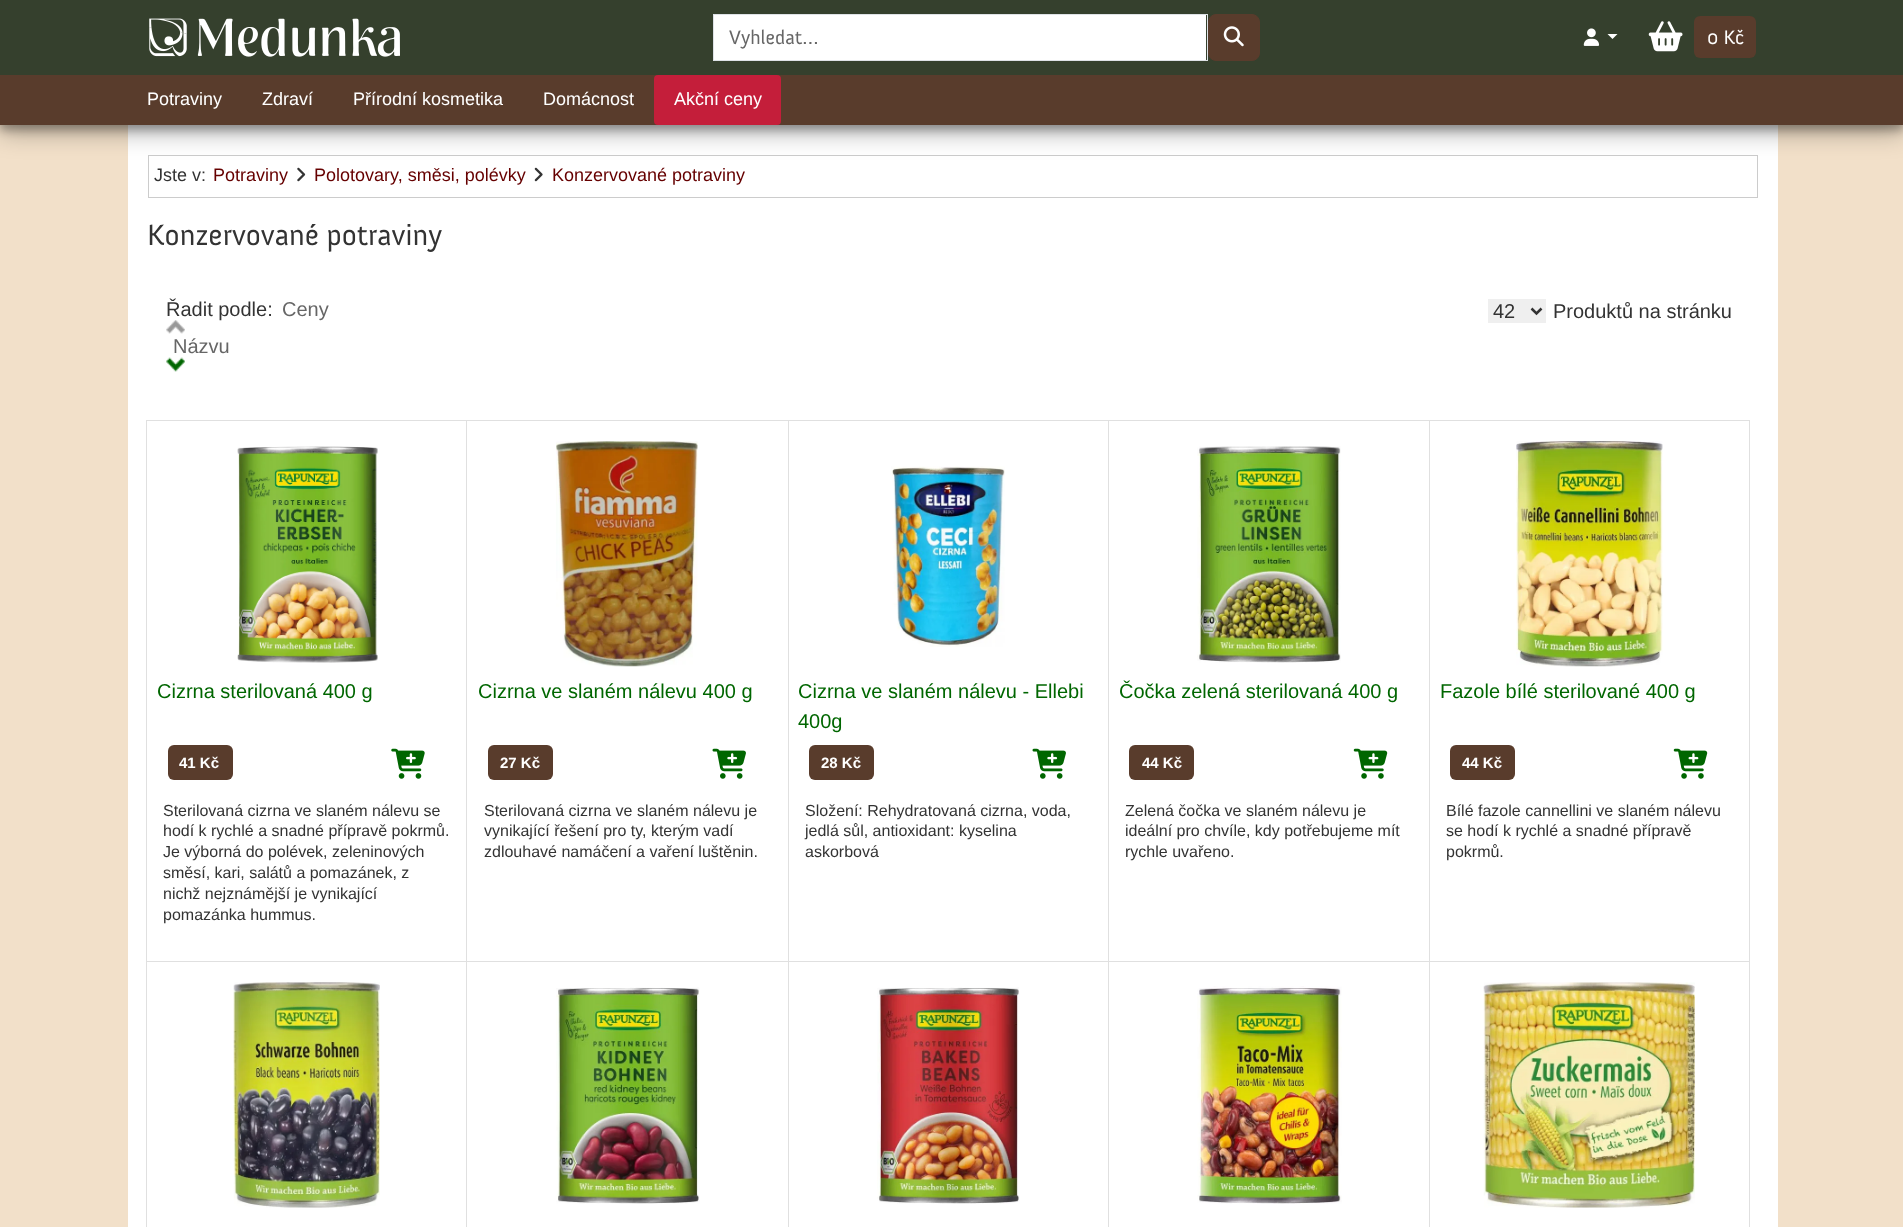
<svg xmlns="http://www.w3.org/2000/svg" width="1903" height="1227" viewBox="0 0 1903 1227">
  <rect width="100%" height="100%" fill="rgb(242,224,201)"/>
  <rect x="128" y="125" width="1650" height="1102" fill="rgb(255,255,255)"/>
  <rect x="148.5" y="155.5" width="1609" height="42" fill="none" stroke="rgb(204,204,204)"/>
  <image x="297" y="167" width="9" height="15" href="pic5.png"/>
  <image x="534" y="167" width="9" height="15" href="pic6.png"/>
  <rect x="0" y="83" width="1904" height="50" fill="rgba(0,0,0,0.29)" filter="blur(12.5px)"/>
  <rect x="0" y="80" width="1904" height="50" fill="rgba(0,0,0,0.3)" filter="blur(5px)"/>
  <rect x="0" y="0" width="1903" height="75" fill="rgb(53,64,45)"/>
  <image x="149" y="18" width="251" height="39" href="pic1.png"/>
  <rect x="714" y="15" width="492" height="45" fill="rgb(255,255,255)"/>
  <rect x="713.5" y="14.5" width="494" height="46" fill="none" stroke="rgb(222,226,230)"/>
  <text x="729" y="44" font-family="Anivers" font-size="20" fill="rgb(102,102,102)">Vyhledat…</text>
  <rect x="1208.5" y="14.5" width="51" height="46" rx="7.5" fill="rgb(89,60,44)" stroke="rgb(89,60,44)"/>
  <image x="1223" y="26" width="21" height="21" href="pic2.png"/>
  <image x="1583" y="28" width="17" height="18" href="pic3.png"/>
  <path d="M1607.5 34H1617.5L1612.5 39Z" fill="rgb(255,255,255)"/>
  <image x="1648" y="21" width="35" height="31" href="pic4.png"/>
  <rect x="1694" y="16" width="62" height="42" rx="6" fill="rgb(89,60,44)"/>
  <text x="1707" y="44" font-family="Anivers" font-size="20" fill="rgb(255,255,255)">0 Kč</text>
  <rect x="0" y="75" width="1903" height="50" fill="rgb(89,60,44)"/>
  <g font-family="Liberation Sans" font-size="18" fill="rgb(255,255,255)">
    <text x="147" y="105">Potraviny</text>
    <text x="262" y="105">Zdraví</text>
    <text x="353" y="105">Přírodní kosmetika</text>
    <text x="543" y="105">Domácnost</text>
  </g>
  <rect x="654" y="75" width="127" height="50" rx="4" fill="rgb(196,30,58)"/>
  <text x="674" y="105" font-family="Liberation Sans" font-size="18" fill="rgb(255,255,255)">Akční ceny</text>
  <text x="154" y="181" font-family="Liberation Sans" font-size="18" fill="rgb(51,51,51)">Jste v:</text>
  <g font-family="Liberation Sans" font-size="18" fill="rgb(102,0,0)">
    <text x="213" y="181">Potraviny</text>
    <text x="314" y="181">Polotovary, směsi, polévky</text>
    <text x="552" y="181">Konzervované potraviny</text>
  </g>
  <text x="147" y="245" font-family="Anivers" font-size="30" fill="rgb(51,51,51)">Konzervované potraviny</text>
  <text x="166" y="316" font-family="Liberation Sans" font-size="20" fill="rgb(51,51,51)">Řadit podle:</text>
  <text x="282" y="316" font-family="Liberation Sans" font-size="20" fill="rgb(102,102,102)">Ceny</text>
  <image x="166" y="320" width="19" height="14" href="pic7.png"/>
  <text x="173" y="353" font-family="Liberation Sans" font-size="20" fill="rgb(102,102,102)">Názvu</text>
  <image x="166" y="357" width="19" height="15" href="pic8.png"/>
  <rect x="1488" y="299" width="58" height="24" fill="rgb(239,239,239)"/>
  <path d="M1531.5 308.5L1536.5 313.5L1541.5 308.5" fill="none" stroke="rgb(51,51,51)" stroke-width="2.5"/>
  <g font-family="Liberation Sans" font-size="20" fill="rgb(51,51,51)">
    <text x="1493" y="318">42</text>
    <text x="1553" y="318">Produktů na stránku</text>
  </g>
  <rect x="146.5" y="420.5" width="321" height="542" fill="none" stroke="rgb(224,224,224)"/>
  <image x="237" y="446" width="141" height="217" href="pic9.png"/>
  <text x="157" y="698" font-family="Liberation Sans" font-size="20" fill="rgb(0,102,0)">Cizrna sterilovaná 400 g</text>
  <rect x="168" y="745" width="65" height="35" rx="6" fill="rgb(89,60,44)"/>
  <text x="179" y="768" font-family="Liberation Sans" font-size="15" font-weight="bold" fill="rgb(255,255,255)">41 Kč</text>
  <image x="391" y="748" width="34" height="31" href="pic10.png"/>
  <g font-family="Liberation Sans" font-size="16" fill="rgb(51,51,51)">
    <text>
      <tspan x="163" y="816">Sterilovaná cizrna ve slaném nálevu se</tspan>
      <tspan x="163" y="836">hodí k rychlé a snadné přípravě pokrmů.</tspan>
      <tspan x="163" y="857">Je výborná do polévek, zeleninových</tspan>
      <tspan x="163" y="878">směsí, kari, salátů a pomazánek, z</tspan>
      <tspan x="163" y="899">nichž nejznámější je vynikající</tspan>
      <tspan x="163" y="920">pomazánka hummus.</tspan>
    </text>
  </g>
  <rect x="467" y="421" width="1" height="540" fill="rgb(255,255,255)"/>
  <rect x="466.5" y="420.5" width="322" height="542" fill="none" stroke="rgb(224,224,224)"/>
  <image x="556" y="441" width="142" height="226" href="pic11.png"/>
  <text x="478" y="698" font-family="Liberation Sans" font-size="20" fill="rgb(0,102,0)">Cizrna ve slaném nálevu 400 g</text>
  <rect x="488" y="745" width="65" height="35" rx="6" fill="rgb(89,60,44)"/>
  <text x="500" y="768" font-family="Liberation Sans" font-size="15" font-weight="bold" fill="rgb(255,255,255)">27 Kč</text>
  <image x="712" y="748" width="34" height="31" href="pic12.png"/>
  <g font-family="Liberation Sans" font-size="16" fill="rgb(51,51,51)">
    <text>
      <tspan x="484" y="816">Sterilovaná cizrna ve slaném nálevu je</tspan>
      <tspan x="484" y="836">vynikající řešení pro ty, kterým vadí</tspan>
      <tspan x="484" y="857">zdlouhavé namáčení a vaření luštěnin.</tspan>
    </text>
  </g>
  <rect x="788.5" y="420.5" width="320" height="542" fill="none" stroke="rgb(224,224,224)"/>
  <image x="891" y="466" width="114" height="181" href="pic13.png"/>
  <g font-family="Liberation Sans" font-size="20" fill="rgb(0,102,0)">
    <text>
      <tspan x="798" y="698">Cizrna ve slaném nálevu - Ellebi</tspan>
      <tspan x="798" y="728">400g</tspan>
    </text>
  </g>
  <rect x="809" y="745" width="65" height="35" rx="6" fill="rgb(89,60,44)"/>
  <text x="821" y="768" font-family="Liberation Sans" font-size="15" font-weight="bold" fill="rgb(255,255,255)">28 Kč</text>
  <image x="1032" y="748" width="34" height="31" href="pic12.png"/>
  <g font-family="Liberation Sans" font-size="16" fill="rgb(51,51,51)">
    <text>
      <tspan x="805" y="816">Složení: Rehydratovaná cizrna, voda,</tspan>
      <tspan x="805" y="836">jedlá sůl, antioxidant: kyselina</tspan>
      <tspan x="805" y="857">askorbová</tspan>
    </text>
  </g>
  <rect x="1108.5" y="420.5" width="321" height="542" fill="none" stroke="rgb(224,224,224)"/>
  <image x="1197" y="446" width="144" height="217" href="pic14.png"/>
  <text x="1119" y="698" font-family="Liberation Sans" font-size="20" fill="rgb(0,102,0)">Čočka zelená sterilovaná 400 g</text>
  <rect x="1129" y="745" width="65" height="35" rx="6" fill="rgb(89,60,44)"/>
  <text x="1142" y="768" font-family="Liberation Sans" font-size="15" font-weight="bold" fill="rgb(255,255,255)">44 Kč</text>
  <image x="1353" y="748" width="35" height="31" href="pic15.png"/>
  <g font-family="Liberation Sans" font-size="16" fill="rgb(51,51,51)">
    <text>
      <tspan x="1125" y="816">Zelená čočka ve slaném nálevu je</tspan>
      <tspan x="1125" y="836">ideální pro chvíle, kdy potřebujeme mít</tspan>
      <tspan x="1125" y="857">rychle uvařeno.</tspan>
    </text>
  </g>
  <rect x="1429.5" y="420.5" width="320" height="542" fill="none" stroke="rgb(224,224,224)"/>
  <image x="1516" y="441" width="147" height="226" href="pic16.png"/>
  <text x="1440" y="698" font-family="Liberation Sans" font-size="20" fill="rgb(0,102,0)">Fazole bílé sterilované 400 g</text>
  <rect x="1450" y="745" width="65" height="35" rx="6" fill="rgb(89,60,44)"/>
  <text x="1462" y="768" font-family="Liberation Sans" font-size="15" font-weight="bold" fill="rgb(255,255,255)">44 Kč</text>
  <image x="1673" y="748" width="35" height="31" href="pic15.png"/>
  <g font-family="Liberation Sans" font-size="16" fill="rgb(51,51,51)">
    <text>
      <tspan x="1446" y="816">Bílé fazole cannellini ve slaném nálevu</tspan>
      <tspan x="1446" y="836">se hodí k rychlé a snadné přípravě</tspan>
      <tspan x="1446" y="857">pokrmů.</tspan>
    </text>
  </g>
  <rect x="147" y="962" width="319" height="1" fill="rgb(255,255,255)"/>
  <rect x="146.5" y="961.5" width="321" height="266" fill="none" stroke="rgb(224,224,224)"/>
  <image x="233" y="982" width="147" height="226" href="pic17.png"/>
  <rect x="466.5" y="961.5" width="322" height="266" fill="rgb(255,255,255)" stroke="rgb(224,224,224)"/>
  <image x="556" y="987" width="144" height="217" href="pic18.png"/>
  <rect x="789" y="962" width="319" height="1" fill="rgb(255,255,255)"/>
  <rect x="788.5" y="961.5" width="320" height="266" fill="none" stroke="rgb(224,224,224)"/>
  <image x="877" y="987" width="143" height="217" href="pic19.png"/>
  <rect x="1109" y="962" width="320" height="1" fill="rgb(255,255,255)"/>
  <rect x="1108.5" y="961.5" width="321" height="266" fill="none" stroke="rgb(224,224,224)"/>
  <image x="1197" y="986" width="145" height="218" href="pic20.png"/>
  <rect x="1430" y="962" width="319" height="1" fill="rgb(255,255,255)"/>
  <rect x="1429.5" y="961.5" width="320" height="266" fill="none" stroke="rgb(224,224,224)"/>
  <image x="1483" y="982" width="212" height="226" href="pic21.png"/>
</svg>
